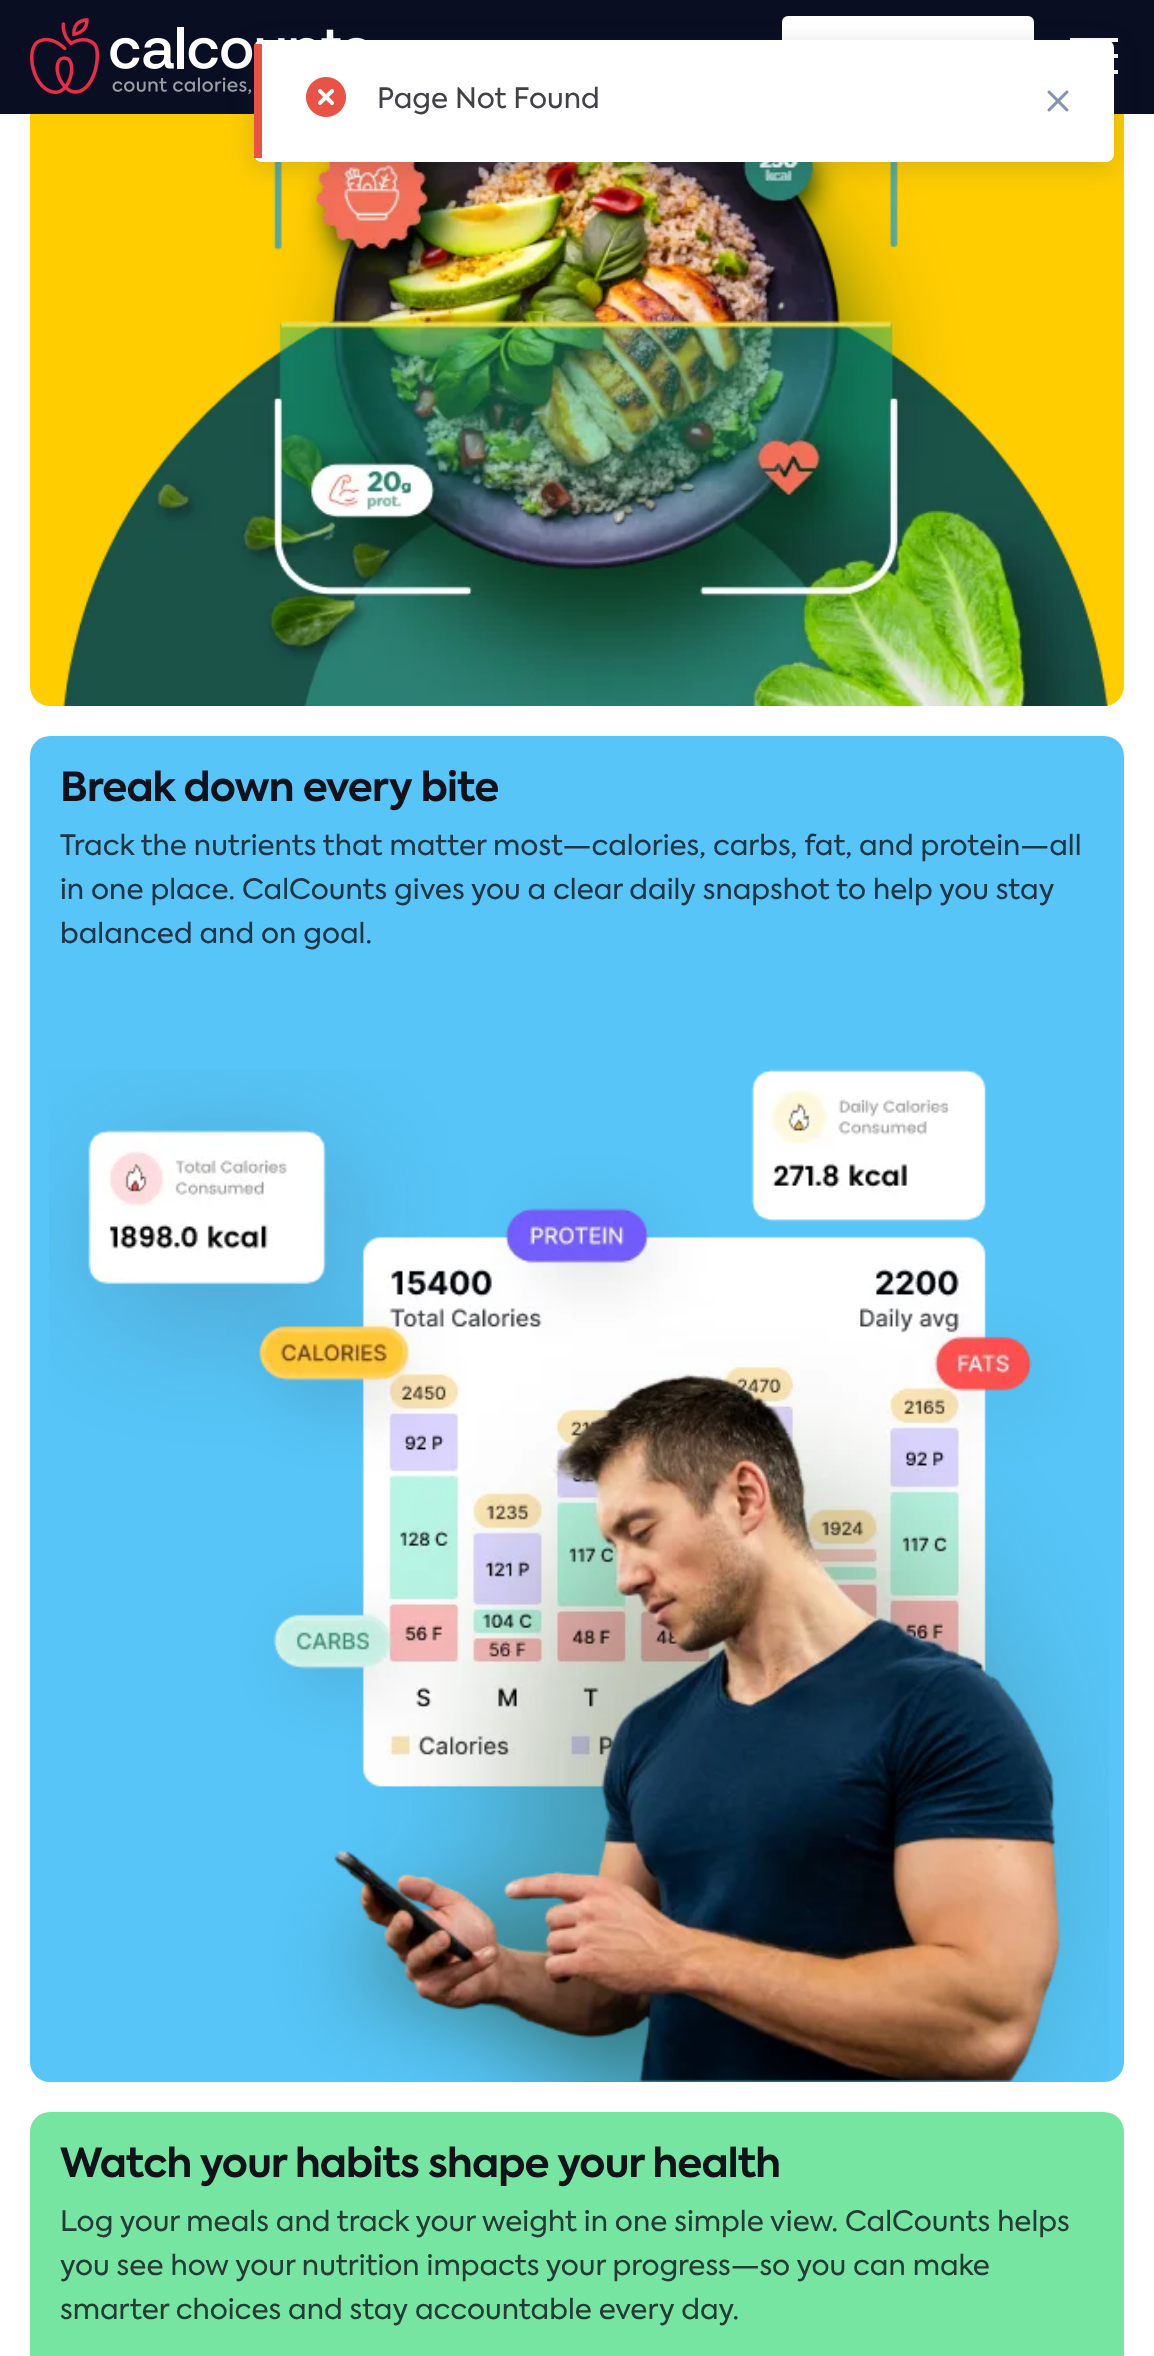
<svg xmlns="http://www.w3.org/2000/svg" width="1154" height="2356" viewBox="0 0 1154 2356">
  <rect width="100%" height="100%" fill="rgb(255,255,255)"/>
  <rect x="30" y="-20" width="1094" height="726" rx="20" fill="rgb(255,205,0)"/>
  <rect x="0" y="0" width="1154" height="114" fill="rgb(9,14,34)"/>
  <image x="30" y="18" width="335" height="76" href="pic3.png"/>
  <rect x="784" y="18" width="248" height="76" rx="4" fill="rgb(255,255,255)" stroke="rgb(255,255,255)" stroke-width="4"/>
  <rect x="1114" y="54" width="4" height="4" fill="rgb(255,255,255)"/>
  <rect x="1070" y="38" width="48" height="4" fill="rgb(255,255,255)"/>
  <rect x="1114" y="70" width="4" height="4" fill="rgb(255,255,255)"/>
  <image x="62" y="162" width="1046" height="544" href="pic4.png"/>
  <rect x="252" y="44" width="864" height="126" rx="10" fill="rgba(43,55,72,0.15)" filter="blur(12px)"/>
  <rect x="254" y="40" width="860" height="122" rx="8" fill="rgb(255,255,255)"/>
  <rect x="254" y="44" width="8" height="114" fill="rgb(232,83,71)"/>
  <image x="306" y="77" width="40" height="40" href="pic1.png"/>
  <text x="377" y="108" font-family="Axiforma" font-size="28" fill="rgb(66,65,72)">Page Not Found</text>
  <image x="1047" y="90" width="22" height="22" href="pic2.png"/>
  <rect x="30" y="736" width="1094" height="1346" rx="20" fill="rgb(87,197,247)"/>
  <text x="60" y="801" font-family="Axiforma" font-size="40" font-weight="bold" letter-spacing="-0.8" fill="rgb(19,17,26)">Break down every bite</text>
  <g font-family="Axiforma" font-size="28" fill="rgb(33,53,70)">
    <text>
      <tspan x="60" y="855">Track the nutrients that matter most—calories, carbs, fat, and protein—all</tspan>
      <tspan x="60" y="899">in one place. CalCounts gives you a clear daily snapshot to help you stay</tspan>
      <tspan x="60" y="943">balanced and on goal.</tspan>
    </text>
  </g>
  <image x="49" y="1069" width="1060" height="1013" href="pic5.png"/>
  <rect x="30" y="2112" width="1094" height="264" rx="20" fill="rgb(117,229,161)"/>
  <text x="60" y="2177" font-family="Axiforma" font-size="40" font-weight="bold" letter-spacing="-0.8" fill="rgb(19,17,26)">Watch your habits shape your health</text>
  <g font-family="Axiforma" font-size="28" fill="rgb(39,59,53)">
    <text>
      <tspan x="60" y="2231">Log your meals and track your weight in one simple view. CalCounts helps</tspan>
      <tspan x="60" y="2275">you see how your nutrition impacts your progress—so you can make</tspan>
      <tspan x="60" y="2319">smarter choices and stay accountable every day.</tspan>
    </text>
  </g>
</svg>
